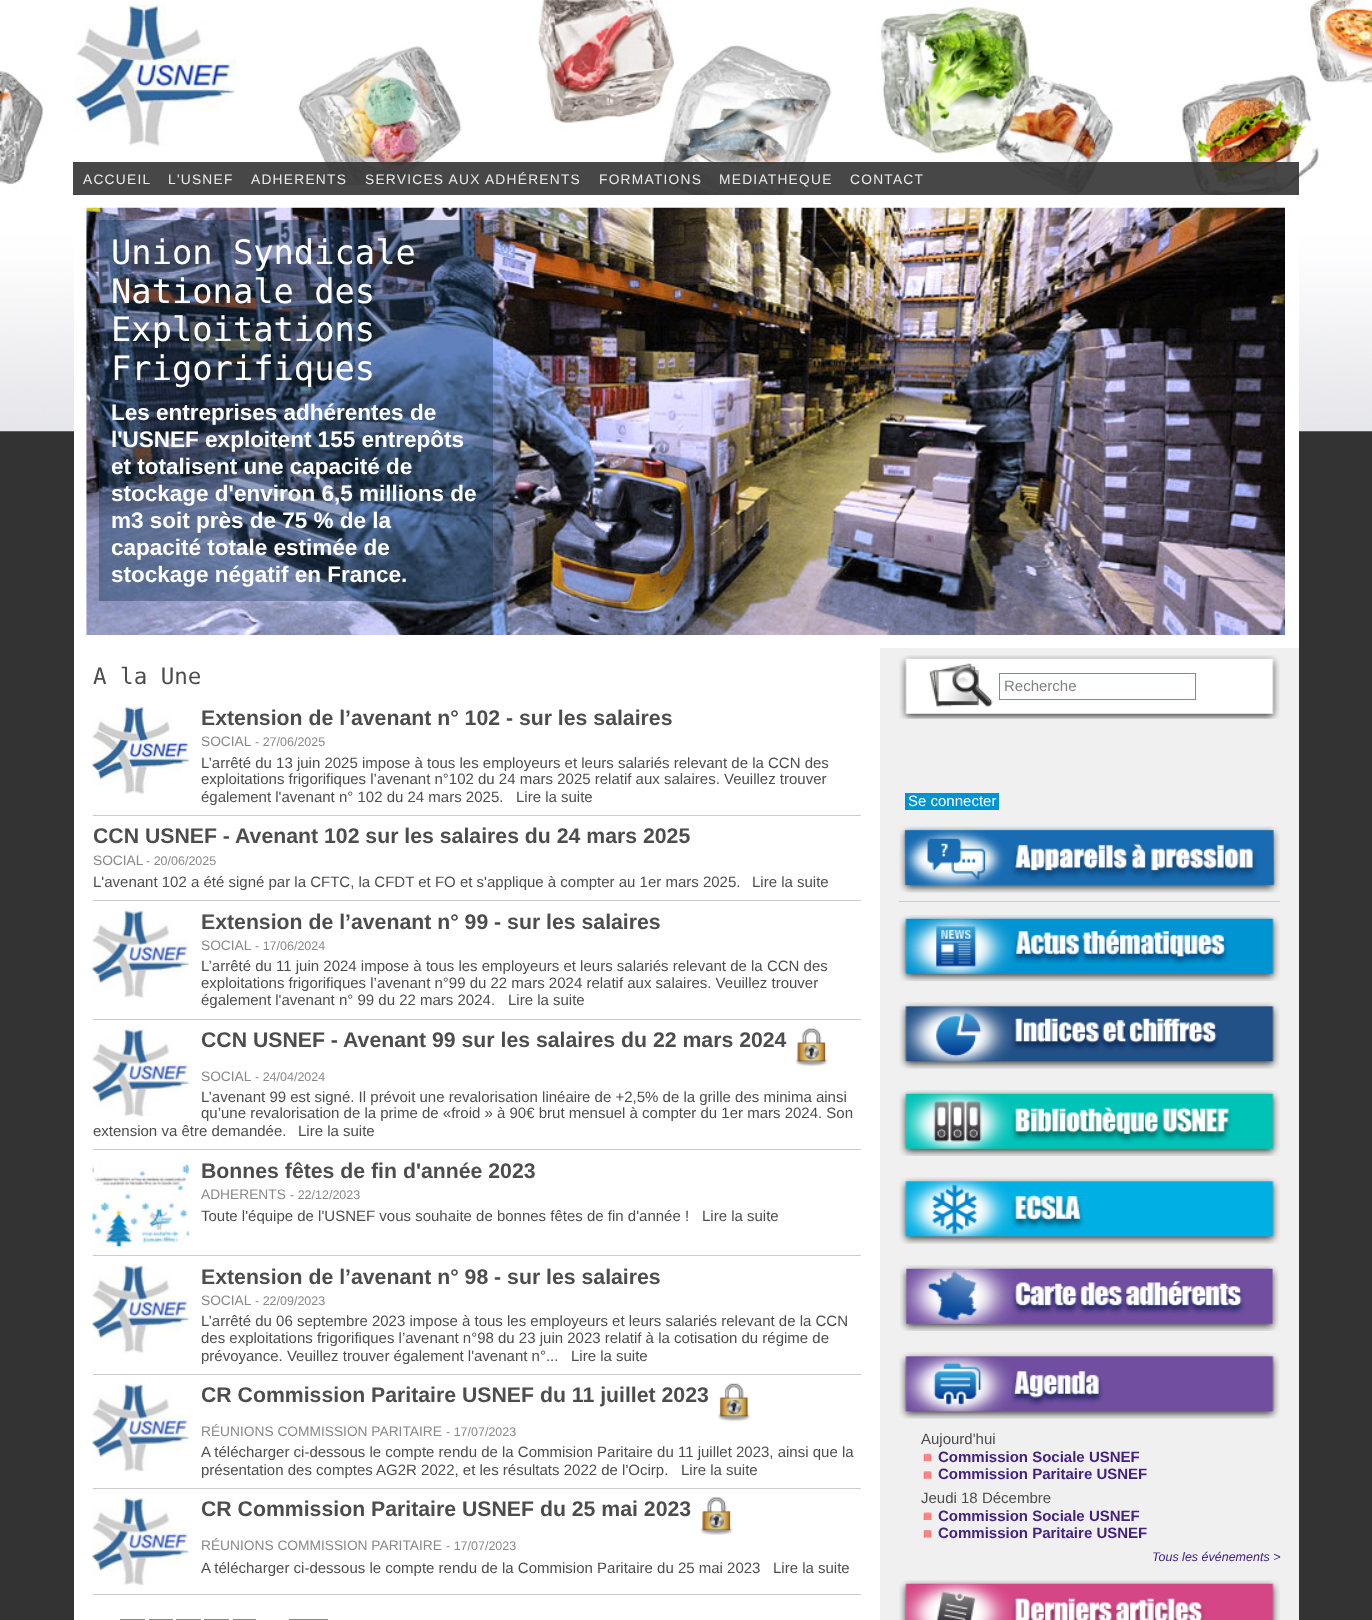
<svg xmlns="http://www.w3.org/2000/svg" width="1372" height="1620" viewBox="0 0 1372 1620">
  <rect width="100%" height="100%" fill="rgb(51,51,51)"/>
  <image x="0" y="0" width="1372" height="432" href="pic1.png"/>
  <rect x="73" y="162" width="1226" height="33" fill="rgba(51,51,51,0.9)"/>
  <g font-family="Liberation Sans" font-size="13.75" letter-spacing="1.25" fill="rgb(235,235,235)">
    <text x="83" y="184">ACCUEIL</text>
    <text x="168" y="184">L'USNEF</text>
    <text x="251" y="184">ADHERENTS</text>
    <text x="365" y="184">SERVICES AUX ADHÉRENTS</text>
    <text x="599" y="184">FORMATIONS</text>
    <text x="719" y="184">MEDIATHEQUE</text>
    <text x="850" y="184">CONTACT</text>
  </g>
  <rect x="74" y="195" width="1225" height="453" fill="rgb(255,255,255)"/>
  <image x="86" y="207" width="1199" height="428" href="pic2.png"/>
  <rect x="99" y="220" width="394" height="381" fill="rgba(18,54,89,0.4)"/>
  <g font-family="DejaVu Sans Mono" font-size="33.75" fill="rgb(255,255,255)">
    <text>
      <tspan x="111" y="264">Union Syndicale</tspan>
      <tspan x="111" y="303">Nationale des</tspan>
      <tspan x="111" y="341">Exploitations</tspan>
      <tspan x="111" y="380">Frigorifiques</tspan>
    </text>
  </g>
  <g font-family="Liberation Sans" font-size="22.5" font-weight="bold" fill="rgb(255,255,255)">
    <text>
      <tspan x="111" y="420">Les entreprises adhérentes de</tspan>
      <tspan x="111" y="447">l'USNEF exploitent 155 entrepôts</tspan>
      <tspan x="111" y="474">et totalisent une capacité de</tspan>
      <tspan x="111" y="501">stockage d'environ 6,5 millions de</tspan>
      <tspan x="111" y="528">m3 soit près de 75 % de la</tspan>
      <tspan x="111" y="555">capacité totale estimée de</tspan>
      <tspan x="111" y="582">stockage négatif en France.</tspan>
    </text>
  </g>
  <rect x="74" y="648" width="806" height="972" fill="rgb(255,255,255)"/>
  <text x="93" y="684" font-family="DejaVu Sans Mono" font-size="22.5" fill="rgb(77,77,77)">A la Une</text>
  <rect x="93" y="815" width="768" height="1" fill="rgb(203,203,203)"/>
  <image x="92" y="706" width="97" height="88" href="pic3.png"/>
  <text x="201" y="725" font-family="Liberation Sans" font-size="21.25" font-weight="bold" fill="rgb(77,77,77)">Extension de l’avenant n° 102 - sur les salaires</text>
  <text x="201" y="746" font-family="Liberation Sans" font-size="13.75" fill="rgb(137,137,137)">SOCIAL</text>
  <text x="255" y="746" font-family="Liberation Sans" font-size="12.5" fill="rgb(137,137,137)">- 27/06/2025</text>
  <g font-family="Liberation Sans" font-size="15" fill="rgb(77,77,77)">
    <text>
      <tspan x="201" y="768">L’arrêté du 13 juin 2025 impose à tous les employeurs et leurs salariés relevant de la CCN des</tspan>
      <tspan x="201" y="784">exploitations frigorifiques l’avenant n°102 du 24 mars 2025 relatif aux salaires. Veuillez trouver</tspan>
      <tspan x="201" y="802">également l'avenant n° 102 du 24 mars 2025.</tspan>
    </text>
    <text x="516" y="802">Lire la suite</text>
  </g>
  <rect x="93" y="900" width="768" height="1" fill="rgb(203,203,203)"/>
  <text x="93" y="843" font-family="Liberation Sans" font-size="21.25" font-weight="bold" fill="rgb(77,77,77)">CCN USNEF - Avenant 102 sur les salaires du 24 mars 2025</text>
  <text x="93" y="865" font-family="Liberation Sans" font-size="13.75" fill="rgb(137,137,137)">SOCIAL</text>
  <text x="146" y="865" font-family="Liberation Sans" font-size="12.5" fill="rgb(137,137,137)">- 20/06/2025</text>
  <g font-family="Liberation Sans" font-size="15" fill="rgb(77,77,77)">
    <text x="93" y="887">L'avenant 102 a été signé par la CFTC, la CFDT et FO et s'applique à compter au 1er mars 2025.</text>
    <text x="752" y="887">Lire la suite</text>
  </g>
  <rect x="93" y="1019" width="768" height="1" fill="rgb(203,203,203)"/>
  <image x="92" y="910" width="97" height="88" href="pic4.png"/>
  <text x="201" y="929" font-family="Liberation Sans" font-size="21.25" font-weight="bold" fill="rgb(77,77,77)">Extension de l’avenant n° 99 - sur les salaires</text>
  <text x="201" y="950" font-family="Liberation Sans" font-size="13.75" fill="rgb(137,137,137)">SOCIAL</text>
  <text x="255" y="950" font-family="Liberation Sans" font-size="12.5" fill="rgb(137,137,137)">- 17/06/2024</text>
  <g font-family="Liberation Sans" font-size="15" fill="rgb(77,77,77)">
    <text>
      <tspan x="201" y="971">L’arrêté du 11 juin 2024 impose à tous les employeurs et leurs salariés relevant de la CCN des</tspan>
      <tspan x="201" y="988">exploitations frigorifiques l’avenant n°99 du 22 mars 2024 relatif aux salaires. Veuillez trouver</tspan>
      <tspan x="201" y="1005">également l'avenant n° 99 du 22 mars 2024.</tspan>
    </text>
    <text x="508" y="1005">Lire la suite</text>
  </g>
  <rect x="93" y="1149" width="768" height="1" fill="rgb(203,203,203)"/>
  <image x="92" y="1028" width="97" height="89" href="pic5.png"/>
  <text x="201" y="1047" font-family="Liberation Sans" font-size="21.25" font-weight="bold" fill="rgb(77,77,77)">CCN USNEF - Avenant 99 sur les salaires du 22 mars 2024</text>
  <image x="795" y="1028" width="33" height="39" href="pic6.png"/>
  <text x="201" y="1081" font-family="Liberation Sans" font-size="13.75" fill="rgb(137,137,137)">SOCIAL</text>
  <text x="255" y="1081" font-family="Liberation Sans" font-size="12.5" fill="rgb(137,137,137)">- 24/04/2024</text>
  <g font-family="Liberation Sans" font-size="15" fill="rgb(77,77,77)">
    <text>
      <tspan x="201" y="1102">L’avenant 99 est signé. Il prévoit une revalorisation linéaire de +2,5% de la grille des minima ainsi</tspan>
      <tspan x="201" y="1118">qu’une revalorisation de la prime de «froid » à 90€ brut mensuel à compter du 1er mars 2024. Son</tspan>
    </text>
    <text x="93" y="1136">extension va être demandée.</text>
    <text x="298" y="1136">Lire la suite</text>
  </g>
  <rect x="93" y="1255" width="768" height="1" fill="rgb(203,203,203)"/>
  <image x="92" y="1159" width="97" height="88" href="pic7.png"/>
  <text x="201" y="1178" font-family="Liberation Sans" font-size="21.25" font-weight="bold" fill="rgb(77,77,77)">Bonnes fêtes de fin d'année 2023</text>
  <text x="201" y="1199" font-family="Liberation Sans" font-size="13.75" fill="rgb(137,137,137)">ADHERENTS</text>
  <text x="290" y="1199" font-family="Liberation Sans" font-size="12.5" fill="rgb(137,137,137)">- 22/12/2023</text>
  <g font-family="Liberation Sans" font-size="15" fill="rgb(77,77,77)">
    <text x="201" y="1221">Toute l'équipe de l'USNEF vous souhaite de bonnes fêtes de fin d'année !</text>
    <text x="702" y="1221">Lire la suite</text>
  </g>
  <rect x="93" y="1374" width="768" height="1" fill="rgb(203,203,203)"/>
  <image x="92" y="1265" width="97" height="88" href="pic4.png"/>
  <text x="201" y="1284" font-family="Liberation Sans" font-size="21.25" font-weight="bold" fill="rgb(77,77,77)">Extension de l’avenant n° 98 - sur les salaires</text>
  <text x="201" y="1305" font-family="Liberation Sans" font-size="13.75" fill="rgb(137,137,137)">SOCIAL</text>
  <text x="255" y="1305" font-family="Liberation Sans" font-size="12.5" fill="rgb(137,137,137)">- 22/09/2023</text>
  <g font-family="Liberation Sans" font-size="15" fill="rgb(77,77,77)">
    <text>
      <tspan x="201" y="1326">L’arrêté du 06 septembre 2023 impose à tous les employeurs et leurs salariés relevant de la CCN</tspan>
      <tspan x="201" y="1343">des exploitations frigorifiques l’avenant n°98 du 23 juin 2023 relatif à la cotisation du régime de</tspan>
      <tspan x="201" y="1361">prévoyance. Veuillez trouver également l'avenant n°...</tspan>
    </text>
    <text x="571" y="1361">Lire la suite</text>
  </g>
  <rect x="93" y="1488" width="768" height="1" fill="rgb(203,203,203)"/>
  <image x="92" y="1383" width="97" height="89" href="pic5.png"/>
  <text x="201" y="1402" font-family="Liberation Sans" font-size="21.25" font-weight="bold" fill="rgb(77,77,77)">CR Commission Paritaire USNEF du 11 juillet 2023</text>
  <image x="718" y="1383" width="32" height="39" href="pic8.png"/>
  <text x="201" y="1436" font-family="Liberation Sans" font-size="13.75" fill="rgb(137,137,137)">RÉUNIONS COMMISSION PARITAIRE</text>
  <text x="446" y="1436" font-family="Liberation Sans" font-size="12.5" fill="rgb(137,137,137)">- 17/07/2023</text>
  <g font-family="Liberation Sans" font-size="15" fill="rgb(77,77,77)">
    <text>
      <tspan x="201" y="1457">A télécharger ci-dessous le compte rendu de la Commision Paritaire du 11 juillet 2023, ainsi que la</tspan>
      <tspan x="201" y="1475">présentation des comptes AG2R 2022, et les résultats 2022 de l'Ocirp.</tspan>
    </text>
    <text x="681" y="1475">Lire la suite</text>
  </g>
  <rect x="93" y="1594" width="768" height="1" fill="rgb(203,203,203)"/>
  <image x="92" y="1497" width="97" height="88" href="pic9.png"/>
  <text x="201" y="1516" font-family="Liberation Sans" font-size="21.25" font-weight="bold" fill="rgb(77,77,77)">CR Commission Paritaire USNEF du 25 mai 2023</text>
  <image x="700" y="1497" width="33" height="38" href="pic10.png"/>
  <text x="201" y="1550" font-family="Liberation Sans" font-size="13.75" fill="rgb(137,137,137)">RÉUNIONS COMMISSION PARITAIRE</text>
  <text x="446" y="1550" font-family="Liberation Sans" font-size="12.5" fill="rgb(137,137,137)">- 17/07/2023</text>
  <g font-family="Liberation Sans" font-size="15" fill="rgb(77,77,77)">
    <text x="201" y="1573">A télécharger ci-dessous le compte rendu de la Commision Paritaire du 25 mai 2023</text>
    <text x="773" y="1573">Lire la suite</text>
  </g>
  <rect x="120.5" y="1619.5" width="24" height="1" fill="none" stroke="rgb(137,137,137)"/>
  <rect x="149.5" y="1619.5" width="23" height="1" fill="none" stroke="rgb(137,137,137)"/>
  <rect x="176.5" y="1619.5" width="24" height="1" fill="none" stroke="rgb(137,137,137)"/>
  <rect x="204.5" y="1619.5" width="24" height="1" fill="none" stroke="rgb(137,137,137)"/>
  <rect x="233.5" y="1619.5" width="22" height="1" fill="none" stroke="rgb(137,137,137)"/>
  <rect x="289.5" y="1619.5" width="38" height="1" fill="none" stroke="rgb(137,137,137)"/>
  <rect x="880" y="648" width="419" height="972" fill="rgb(240,240,240)"/>
  <image x="899" y="655" width="381" height="64" href="pic11.png"/>
  <rect x="999.5" y="673.5" width="196" height="26" fill="none" stroke="rgb(0,186,233)"/>
  <text x="1004" y="691" font-family="Liberation Sans" font-size="15" fill="rgb(130,130,130)">Recherche</text>
  <rect x="905" y="793" width="94" height="17" fill="rgb(0,147,210)"/>
  <text x="908" y="806" font-family="Liberation Sans" font-size="15" fill="rgb(255,255,255)">Se connecter</text>
  <rect x="899" y="901" width="381" height="1" fill="rgb(203,203,203)"/>
  <image x="899" y="826" width="381" height="67" href="pic12.png"/>
  <image x="899" y="915" width="381" height="66" href="pic13.png"/>
  <image x="899" y="1002" width="381" height="67" href="pic14.png"/>
  <image x="899" y="1090" width="381" height="66" href="pic15.png"/>
  <image x="899" y="1177" width="381" height="67" href="pic16.png"/>
  <image x="900" y="1265" width="379" height="66" href="pic17.png"/>
  <image x="899" y="1352" width="381" height="67" href="pic18.png"/>
  <text x="921" y="1444" font-family="Liberation Sans" font-size="15" fill="rgb(77,77,77)">Aujourd'hui</text>
  <image x="923" y="1453" width="9" height="9" href="pic19.png"/>
  <text x="938" y="1462" font-family="Liberation Sans" font-size="15" font-weight="bold" fill="rgb(68,33,128)">Commission Sociale USNEF</text>
  <image x="923" y="1471" width="9" height="8" href="pic20.png"/>
  <text x="938" y="1479" font-family="Liberation Sans" font-size="15" font-weight="bold" fill="rgb(68,33,128)">Commission Paritaire USNEF</text>
  <text x="921" y="1503" font-family="Liberation Sans" font-size="15" fill="rgb(77,77,77)">Jeudi 18 Décembre</text>
  <image x="923" y="1512" width="9" height="8" href="pic21.png"/>
  <text x="938" y="1521" font-family="Liberation Sans" font-size="15" font-weight="bold" fill="rgb(68,33,128)">Commission Sociale USNEF</text>
  <image x="923" y="1530" width="9" height="8" href="pic22.png"/>
  <text x="938" y="1538" font-family="Liberation Sans" font-size="15" font-weight="bold" fill="rgb(68,33,128)">Commission Paritaire USNEF</text>
  <text x="1152" y="1561" font-family="Liberation Sans" font-size="12.5" font-style="italic" fill="rgb(68,33,128)">Tous les événements &gt;</text>
  <image x="899" y="1580" width="381" height="40" href="pic23.png"/>
</svg>
